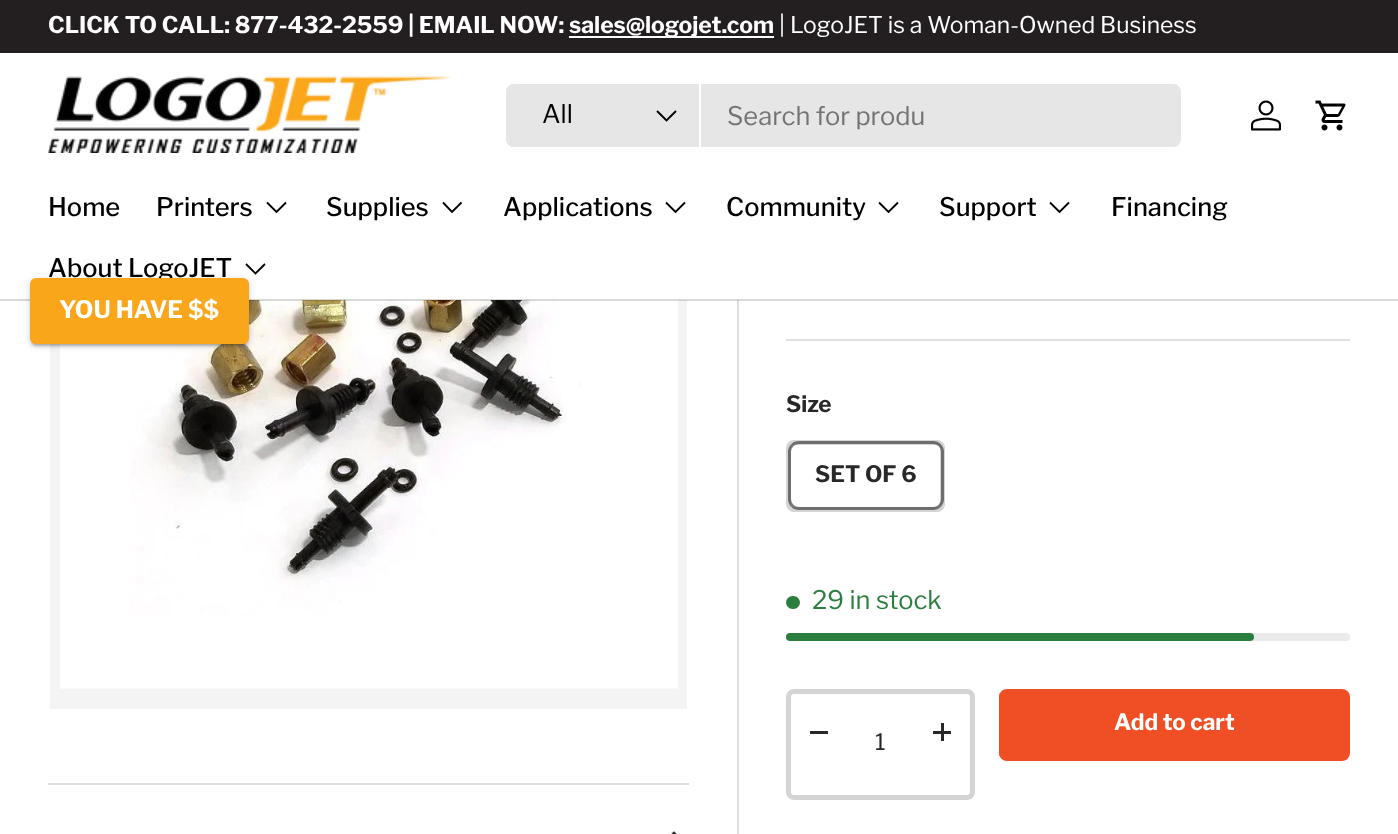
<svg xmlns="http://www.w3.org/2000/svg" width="1398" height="834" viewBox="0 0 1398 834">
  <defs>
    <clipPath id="clip1"><rect x="999" y="689" width="351" height="72" rx="8"/></clipPath>
    <linearGradient id="g1" gradientUnits="userSpaceOnUse" x1="342" y1="602" x2="1323" y2="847"><stop offset="0.6" stop-color="rgb(243,117,84)"/><stop offset="0.6" stop-color="rgb(240,79,37)"/><stop offset="1" stop-color="rgb(240,79,37)"/></linearGradient>
  </defs>
  <rect width="100%" height="100%" fill="rgb(255,255,255)"/>
  <rect x="0" y="0" width="1398" height="53" fill="rgb(35,31,32)"/>
  <text x="48" y="33" font-family="Libre Franklin" font-size="22.95" font-weight="bold" fill="rgb(255,255,255)">CLICK TO CALL: 877-432-2559 | EMAIL NOW:</text>
  <rect x="569" y="36" width="205" height="2" fill="rgb(255,255,255)"/>
  <text x="569" y="33" font-family="Libre Franklin" font-size="22.95" font-weight="bold" fill="rgb(255,255,255)">sales@logojet.com</text>
  <text x="779" y="33" font-family="Libre Franklin" font-size="22.95" fill="rgb(255,255,255)">| LogoJET is a Woman-Owned Business</text>
  <rect x="50" y="300" width="637" height="409" fill="rgb(244,244,244)"/>
  <image x="60" y="300" width="618" height="389" href="pic4.png"/>
  <rect x="737" y="300" width="2" height="534" fill="rgb(223,223,223)"/>
  <rect x="0" y="299" width="1398" height="2" fill="rgba(0,0,0,0.15)"/>
  <image x="48" y="76" width="404" height="77" href="pic1.png"/>
  <rect x="506" y="84" width="675" height="63" rx="8" fill="rgb(230,230,230)"/>
  <path d="M514 84H701V147H514C509.5 147 506 143.5 506 139V92C506 87.5 509.5 84 514 84Z" fill="rgb(230,230,230)"/>
  <rect x="699" y="84" width="2" height="63" fill="rgb(255,255,255)"/>
  <text x="542" y="123" font-family="Libre Franklin" font-size="25.5" fill="rgb(0,0,0)">All</text>
  <path d="M676 111L666.5 120.5L657 111" fill="none" stroke="rgb(0,0,0)" stroke-width="1.9"/>
  <text x="727" y="125" font-family="Libre Franklin" font-size="25.5" fill="rgb(115,115,115)">Search for produ</text>
  <image x="1251" y="100" width="30" height="31" href="pic2.png"/>
  <image x="1315" y="100" width="31" height="31" href="pic3.png"/>
  <g font-family="Libre Franklin" font-size="25.5" font-weight="500" fill="rgb(0,0,0)">
    <text x="48" y="216">Home</text>
    <text x="156" y="216">Printers</text>
  </g>
  <path d="M286 202.5L276.5 212L267 202.5" fill="none" stroke="rgb(0,0,0)" stroke-width="1.9"/>
  <text x="326" y="216" font-family="Libre Franklin" font-size="25.5" font-weight="500" fill="rgb(0,0,0)">Supplies</text>
  <path d="M461.5 202.5L452 212L443 202.5" fill="none" stroke="rgb(0,0,0)" stroke-width="1.9"/>
  <text x="503" y="216" font-family="Libre Franklin" font-size="25.5" font-weight="500" fill="rgb(0,0,0)">Applications</text>
  <path d="M685 202.5L675.5 212L666 202.5" fill="none" stroke="rgb(0,0,0)" stroke-width="1.9"/>
  <text x="726" y="216" font-family="Libre Franklin" font-size="25.5" font-weight="500" fill="rgb(0,0,0)">Community</text>
  <path d="M898 202.5L888.5 212L879 202.5" fill="none" stroke="rgb(0,0,0)" stroke-width="1.9"/>
  <text x="939" y="216" font-family="Libre Franklin" font-size="25.5" font-weight="500" fill="rgb(0,0,0)">Support</text>
  <path d="M1069 202.5L1059.5 212L1050 202.5" fill="none" stroke="rgb(0,0,0)" stroke-width="1.9"/>
  <g font-family="Libre Franklin" font-size="25.5" font-weight="500" fill="rgb(0,0,0)">
    <text x="1111" y="216">Financing</text>
    <text x="48" y="277">About LogoJET</text>
  </g>
  <path d="M265 264L255.5 273.5L246 264" fill="none" stroke="rgb(0,0,0)" stroke-width="1.9"/>
  <rect x="30" y="279" width="219" height="66" rx="6" fill="rgba(0,0,0,0.12)" filter="blur(4px)"/>
  <rect x="30" y="281" width="219" height="66" rx="6" fill="rgba(0,0,0,0.14)" filter="blur(1.5px)"/>
  <rect x="33" y="285" width="213" height="60" rx="3" fill="rgba(0,0,0,0.2)" filter="blur(1px)"/>
  <rect x="30" y="278" width="219" height="66" rx="6" fill="rgb(250,166,26)"/>
  <text x="59" y="318" font-family="Libre Franklin" font-size="24" font-weight="bold" fill="rgb(255,255,255)">YOU HAVE $$</text>
  <rect x="786" y="339" width="564" height="2" fill="rgb(223,223,223)"/>
  <text x="786" y="412" font-family="Libre Franklin" font-size="22.5" font-weight="bold" fill="rgb(41,40,41)">Size</text>
  <rect x="788.5" y="442.5" width="154" height="67" rx="5.5" fill="none" stroke="rgb(212,212,212)" stroke-width="5"/>
  <rect x="789.5" y="442.5" width="153" height="66" rx="9.5" fill="none" stroke="rgba(41,40,41,0.6)" stroke-width="3"/>
  <text x="815" y="482" font-family="Libre Franklin" font-size="22.5" font-weight="bold" fill="rgb(41,40,41)">SET OF 6</text>
  <rect x="786" y="596" width="14" height="13" rx="6.5" fill="rgb(44,126,63)"/>
  <text x="812" y="609" font-family="Libre Franklin" font-size="25.5" fill="rgb(44,126,63)">29 in stock</text>
  <rect x="786" y="633" width="564" height="8" rx="4" fill="rgb(234,234,234)"/>
  <rect x="786" y="633" width="468" height="8" rx="4" fill="rgb(44,126,63)"/>
  <g clip-path="url(#clip1)">
    <rect x="999" y="693" width="346" height="63" fill="url(#g1)"/>
  </g>
  <rect x="1001.5" y="691.5" width="346" height="67" rx="5.5" fill="none" stroke="rgb(240,79,37)" stroke-width="5"/>
  <text x="1114" y="730" font-family="Libre Franklin" font-size="22.5" font-weight="bold" fill="rgb(255,255,255)">Add to cart</text>
  <rect x="788.5" y="691.5" width="184" height="106" rx="5.5" fill="none" stroke="rgb(212,212,212)" stroke-width="5"/>
  <rect x="810" y="731" width="18" height="3" fill="rgb(41,40,41)"/>
  <rect x="933" y="731" width="18" height="3" fill="rgb(41,40,41)"/>
  <rect x="941" y="723" width="3" height="18" fill="rgb(41,40,41)"/>
  <text x="875" y="750" font-family="Libre Franklin" font-size="22.5" fill="rgb(41,40,41)">1</text>
  <rect x="48" y="783" width="641" height="2" fill="rgb(223,223,223)"/>
  <path d="M683.5 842L674 832.5L665 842" fill="none" stroke="rgb(41,40,41)" stroke-width="1.9"/>
</svg>
